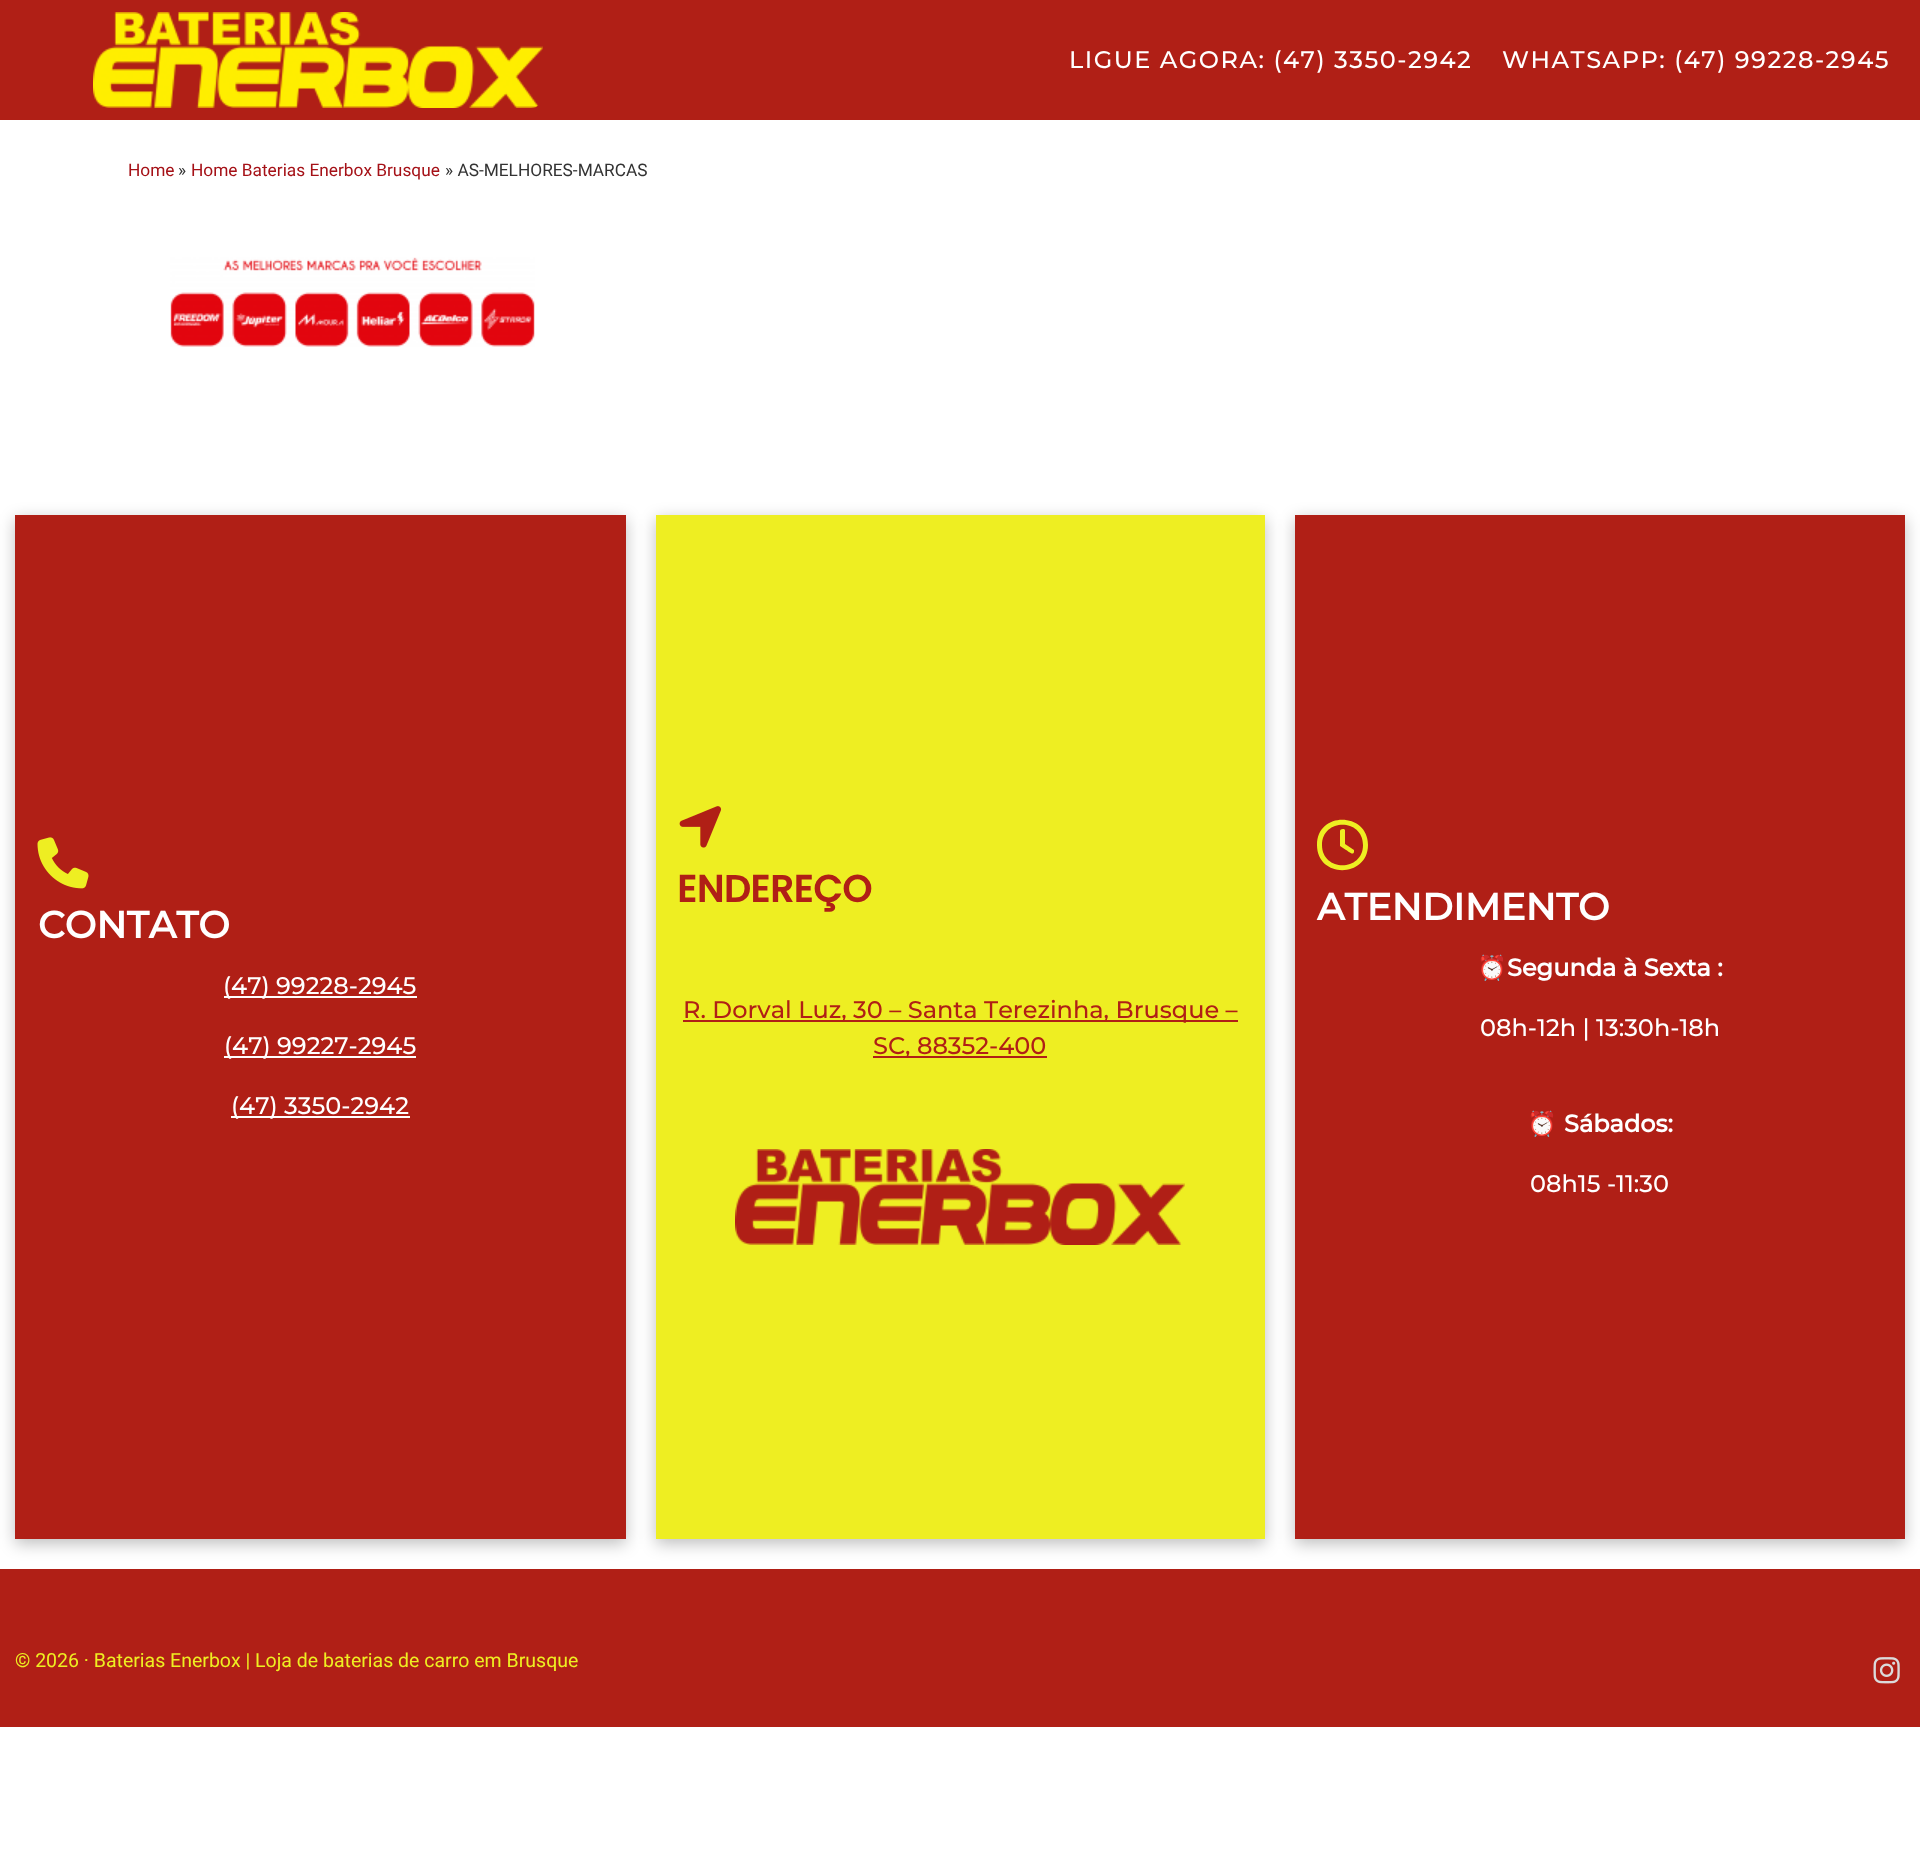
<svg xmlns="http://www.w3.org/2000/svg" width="1920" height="1864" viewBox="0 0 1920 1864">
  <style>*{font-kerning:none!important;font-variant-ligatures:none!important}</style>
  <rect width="100%" height="100%" fill="rgb(255,255,255)"/>
  <rect x="0" y="0" width="1920" height="120" fill="rgb(176,31,22)"/>
  <image x="93" y="12" width="450" height="96" href="pic1.png"/>
  <g font-family="Montserrat" font-size="24" font-weight="100" letter-spacing="1.5" fill="rgb(255,255,255)">
    <text x="1069" y="68">LIGUE AGORA: (47) 3350-2942</text>
    <text x="1502" y="68">WHATSAPP: (47) 99228-2945</text>
  </g>
  <text x="128" y="176" font-family="Roboto" font-size="17.3" fill="rgb(165,17,23)">Home</text>
  <text x="178" y="176" font-family="Roboto" font-size="17.3" fill="rgb(51,51,51)">»</text>
  <text x="191" y="176" font-family="Roboto" font-size="17.3" fill="rgb(165,17,23)">Home Baterias Enerbox Brusque</text>
  <text x="445" y="176" font-family="Roboto" font-size="17.3" fill="rgb(51,51,51)">» AS-MELHORES-MARCAS</text>
  <image x="170" y="257" width="365" height="90" href="pic2.png"/>
  <rect x="15" y="519" width="611" height="1025" fill="rgba(0,0,0,0.25)" filter="blur(8px)"/>
  <rect x="15" y="515" width="611" height="1024" fill="rgb(176,31,22)"/>
  <image x="37" y="837" width="52" height="52" href="pic3.png"/>
  <text x="38" y="938" font-family="Montserrat" font-size="37.5" font-weight="bold" fill="rgb(255,255,255)">CONTATO</text>
  <rect x="224" y="996" width="193" height="2" fill="rgb(255,255,255)"/>
  <text x="223" y="994" font-family="Montserrat" font-size="24" font-weight="100" fill="rgb(255,255,255)">(47) 99228-2945</text>
  <rect x="224" y="1056" width="192" height="2" fill="rgb(255,255,255)"/>
  <text x="224" y="1054" font-family="Montserrat" font-size="24" font-weight="100" fill="rgb(255,255,255)">(47) 99227-2945</text>
  <rect x="231" y="1116" width="179" height="2" fill="rgb(255,255,255)"/>
  <text x="231" y="1114" font-family="Montserrat" font-size="24" font-weight="100" fill="rgb(255,255,255)">(47) 3350-2942</text>
  <rect x="656" y="519" width="609" height="1025" fill="rgba(0,0,0,0.25)" filter="blur(8px)"/>
  <rect x="656" y="515" width="609" height="1024" fill="rgb(238,238,34)"/>
  <image x="679" y="806" width="43" height="42" href="pic4.png"/>
  <text x="677" y="902" font-family="Poppins" font-size="37.5" font-weight="bold" fill="rgb(176,31,22)">ENDEREÇO</text>
  <rect x="683" y="1020" width="555" height="2" fill="rgb(176,31,22)"/>
  <text x="683" y="1018" font-family="Montserrat" font-size="24" font-weight="100" fill="rgb(176,31,22)">R. Dorval Luz, 30 – Santa Terezinha, Brusque –</text>
  <rect x="873" y="1056" width="174" height="2" fill="rgb(176,31,22)"/>
  <text x="873" y="1054" font-family="Montserrat" font-size="24" font-weight="100" fill="rgb(176,31,22)">SC, 88352-400</text>
  <image x="735" y="1149" width="450" height="96" href="pic5.png"/>
  <rect x="1295" y="519" width="610" height="1025" fill="rgba(0,0,0,0.25)" filter="blur(8px)"/>
  <rect x="1295" y="515" width="610" height="1024" fill="rgb(176,31,22)"/>
  <path d="M1363 845C1363 872 1322 872 1322 845C1322 818 1363 818 1363 845ZM1317 845C1317 879 1368 878 1368 845C1368 812 1317 811 1317 845ZM1340 831V846L1346 850C1348 851 1353 856 1354 852V850L1345 844V830C1344 828 1340 829 1340 831Z" fill="rgb(238,238,34)"/>
  <text x="1317" y="920" font-family="Montserrat" font-size="37.5" font-weight="bold" fill="rgb(255,255,255)">ATENDIMENTO</text>
  <text x="1477" y="976" font-family="Noto Color Emoji" font-size="24" font-weight="bold" fill="rgb(255,255,255)">⏰</text>
  <text x="1507" y="976" font-family="Montserrat" font-size="24" font-weight="bold" fill="rgb(255,255,255)">Segunda à Sexta :</text>
  <text x="1480" y="1036" font-family="Montserrat" font-size="24" font-weight="100" fill="rgb(255,255,255)">08h-12h | 13:30h-18h</text>
  <text x="1527" y="1132" font-family="Noto Color Emoji" font-size="24" font-weight="bold" fill="rgb(255,255,255)">⏰</text>
  <text x="1564" y="1132" font-family="Montserrat" font-size="24" font-weight="bold" fill="rgb(255,255,255)">Sábados:</text>
  <text x="1530" y="1192" font-family="Montserrat" font-size="24" font-weight="100" fill="rgb(255,255,255)">08h15 -11:30</text>
  <rect x="0" y="1569" width="1920" height="158" fill="rgb(176,31,22)"/>
  <text x="15" y="1667" font-family="Roboto" font-size="19.5" fill="rgb(238,238,34)">© 2026 · Baterias Enerbox | Loja de baterias de carro em Brusque</text>
  <image x="1873" y="1657" width="27" height="27" href="pic6.png"/>
</svg>
